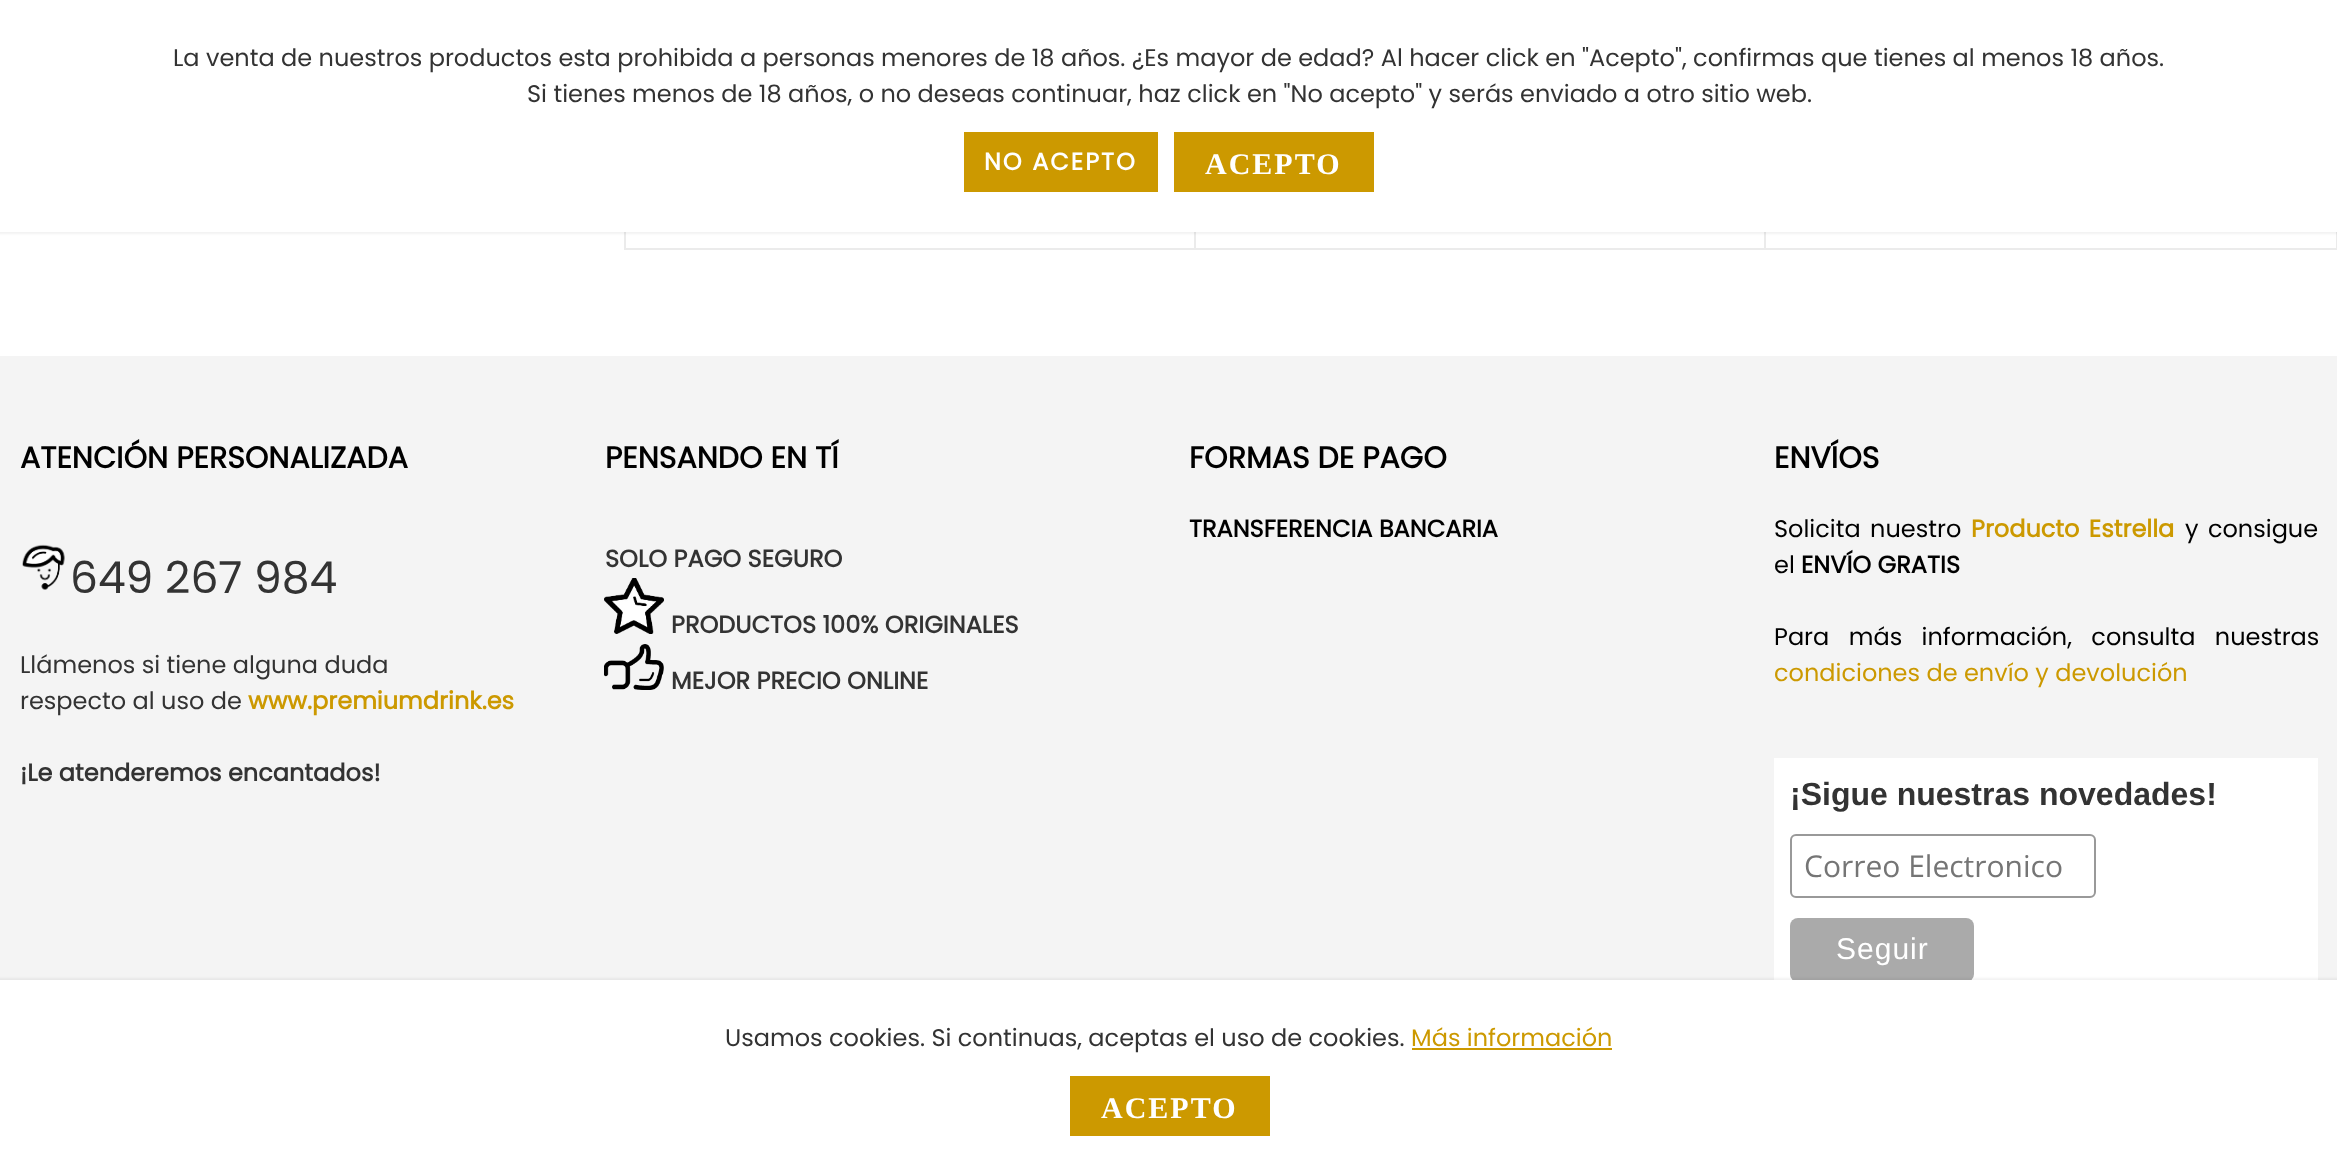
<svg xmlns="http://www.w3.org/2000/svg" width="2337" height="1175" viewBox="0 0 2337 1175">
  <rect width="100%" height="100%" fill="rgb(255,255,255)"/>
  <rect x="1194" y="232" width="2" height="18" fill="rgb(235,235,235)"/>
  <rect x="624" y="248" width="572" height="2" fill="rgb(235,235,235)"/>
  <rect x="624" y="232" width="2" height="18" fill="rgb(235,235,235)"/>
  <rect x="1764" y="232" width="2" height="18" fill="rgb(235,235,235)"/>
  <rect x="2336" y="232" width="1" height="18" fill="rgb(235,235,235)"/>
  <rect x="-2" y="-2" width="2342" height="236" fill="rgba(0,0,0,0.05)" filter="blur(1px)"/>
  <rect x="0" y="0" width="2337" height="232" fill="rgb(255,255,255)"/>
  <g font-family="Poppins" font-size="24" fill="rgb(51,51,51)">
    <text x="173" y="66">La venta de nuestros productos esta prohibida a personas menores de 18 años. ¿Es mayor de edad? Al hacer click en "Acepto", confirmas que tienes al menos 18 años.</text>
    <text x="527" y="102">Si tienes menos de 18 años, o no deseas continuar, haz click en "No acepto" y serás enviado a otro sitio web.</text>
  </g>
  <rect x="964" y="132" width="194" height="60" fill="rgb(204,153,0)"/>
  <text x="984" y="170" font-family="Poppins" font-size="24" font-weight="bold" letter-spacing="2" fill="rgb(255,255,255)">NO ACEPTO</text>
  <rect x="1174" y="132" width="200" height="60" fill="rgb(204,153,0)"/>
  <text x="1205" y="174" font-family="Liberation Serif" font-size="30" font-weight="bold" letter-spacing="2" fill="rgb(255,255,255)">ACEPTO</text>
  <rect x="0" y="356" width="2337" height="624" fill="rgb(244,244,244)"/>
  <rect x="1774" y="758" width="544" height="222" fill="rgb(255,255,255)"/>
  <rect x="1790" y="918" width="184" height="64" rx="8" fill="rgb(170,170,170)"/>
  <rect x="-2" y="978" width="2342" height="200" fill="rgba(0,0,0,0.05)" filter="blur(1px)"/>
  <rect x="0" y="980" width="2337" height="195" fill="rgb(255,255,255)"/>
  <text x="725" y="1046" font-family="Poppins" font-size="24" fill="rgb(51,51,51)">Usamos cookies. Si continuas, aceptas el uso de cookies.</text>
  <text x="1411" y="1046" font-family="Poppins" font-size="24" fill="rgb(204,153,0)">Más información</text>
  <rect x="1412" y="1048" width="200" height="2" fill="rgb(204,153,0)"/>
  <rect x="1070" y="1076" width="200" height="60" fill="rgb(204,153,0)"/>
  <text x="1101" y="1118" font-family="Liberation Serif" font-size="30" font-weight="bold" letter-spacing="2" fill="rgb(255,255,255)">ACEPTO</text>
  <rect x="1196" y="248" width="570" height="2" fill="rgb(235,235,235)"/>
  <rect x="1766" y="248" width="571" height="2" fill="rgb(235,235,235)"/>
  <text x="20" y="468" font-family="Poppins" font-size="30" font-weight="bold" fill="rgb(0,0,0)">ATENCIÓN PERSONALIZADA</text>
  <image x="22" y="544" width="43" height="46" href="pic1.png"/>
  <text x="70" y="593" font-family="Poppins" font-size="44" fill="rgb(51,51,51)">649 267 984</text>
  <g font-family="Poppins" font-size="24" fill="rgb(51,51,51)">
    <text>
      <tspan x="20" y="673">Llámenos si tiene alguna duda</tspan>
      <tspan x="20" y="709">respecto al uso de</tspan>
    </text>
  </g>
  <text x="248" y="709" font-family="Poppins" font-size="24" font-weight="bold" fill="rgb(204,153,0)">www.premiumdrink.es</text>
  <text x="20" y="781" font-family="Poppins" font-size="24" font-weight="bold" fill="rgb(51,51,51)">¡Le atenderemos encantados!</text>
  <text x="605" y="468" font-family="Poppins" font-size="30" font-weight="bold" fill="rgb(0,0,0)">PENSANDO EN TÍ</text>
  <text x="605" y="567" font-family="Poppins" font-size="24" font-weight="bold" fill="rgb(51,51,51)">SOLO PAGO SEGURO</text>
  <image x="604" y="578" width="60" height="56" href="pic2.png"/>
  <text x="671" y="633" font-family="Poppins" font-size="24" font-weight="bold" fill="rgb(51,51,51)">PRODUCTOS 100% ORIGINALES</text>
  <image x="604" y="644" width="60" height="46" href="pic3.png"/>
  <text x="671" y="689" font-family="Poppins" font-size="24" font-weight="bold" fill="rgb(51,51,51)">MEJOR PRECIO ONLINE</text>
  <text x="1189" y="468" font-family="Poppins" font-size="30" font-weight="bold" fill="rgb(0,0,0)">FORMAS DE PAGO</text>
  <text x="1189" y="537" font-family="Poppins" font-size="24" font-weight="bold" fill="rgb(0,0,0)">TRANSFERENCIA BANCARIA</text>
  <text x="1774" y="468" font-family="Poppins" font-size="30" font-weight="bold" fill="rgb(0,0,0)">ENVÍOS</text>
  <text x="1774" y="537" word-spacing="3" font-family="Poppins" font-size="24" fill="rgb(0,0,0)">Solicita nuestro</text>
  <text x="1971" y="537" word-spacing="3" font-family="Poppins" font-size="24" font-weight="bold" fill="rgb(204,153,0)">Producto Estrella</text>
  <g font-family="Poppins" font-size="24" fill="rgb(0,0,0)">
    <text x="2185" y="537" word-spacing="3">y consigue</text>
    <text x="1774" y="573">el</text>
  </g>
  <text x="1801" y="573" font-family="Poppins" font-size="24" font-weight="bold" fill="rgb(0,0,0)">ENVÍO GRATIS</text>
  <text x="1774" y="645" word-spacing="13" font-family="Poppins" font-size="24" fill="rgb(0,0,0)">Para más información, consulta nuestras</text>
  <text x="1774" y="681" font-family="Poppins" font-size="24" fill="rgb(204,153,0)">condiciones de envío y devolución</text>
  <text x="1790" y="805" font-family="Liberation Sans" font-size="32" font-weight="bold" fill="rgb(51,51,51)">¡Sigue nuestras novedades!</text>
  <rect x="1791" y="835" width="304" height="62" rx="5" fill="none" stroke="rgb(153,153,153)" stroke-width="2"/>
  <text x="1804" y="877" font-family="Open Sans" font-size="30" fill="rgb(117,117,117)">Correo Electronico</text>
  <text x="1836" y="959" font-family="Liberation Sans" font-size="30" letter-spacing="1" fill="rgb(255,255,255)">Seguir</text>
</svg>
